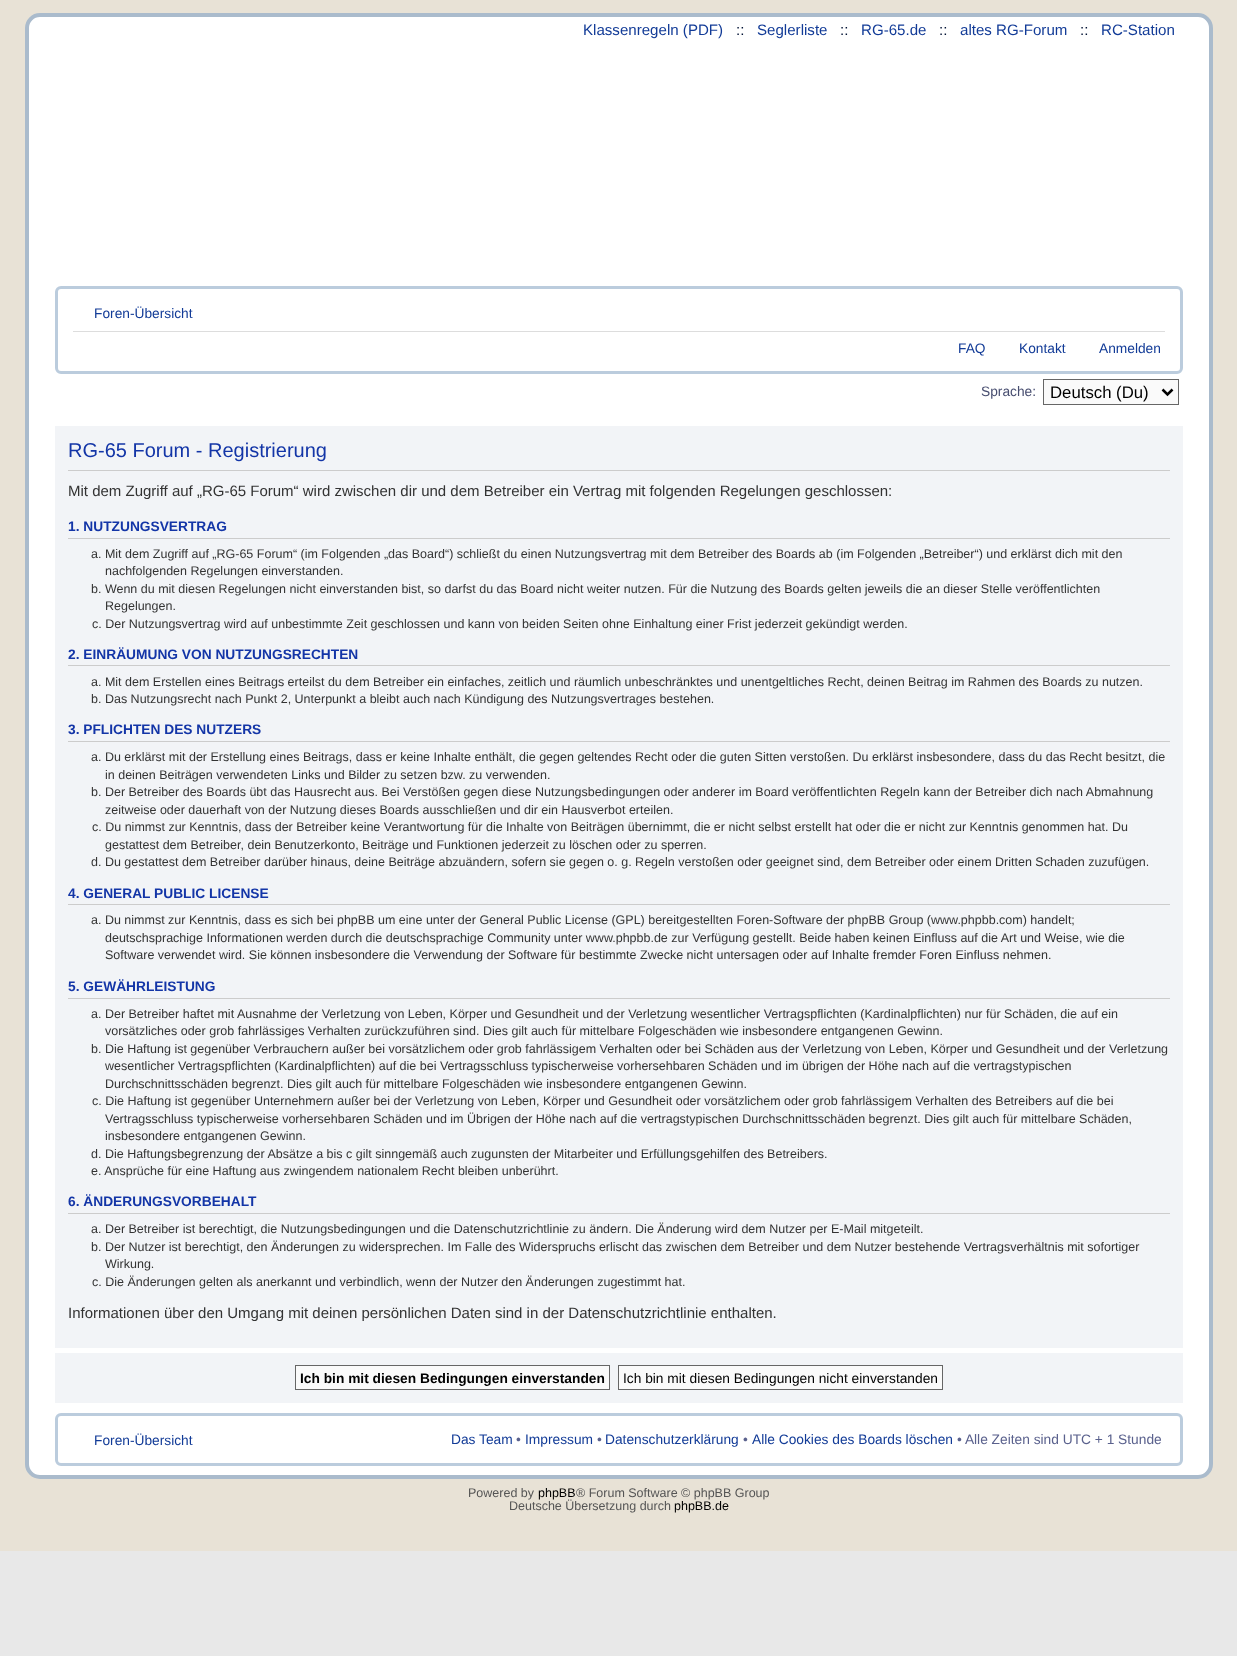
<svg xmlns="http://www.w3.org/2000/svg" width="1237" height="1656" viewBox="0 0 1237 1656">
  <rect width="100%" height="100%" fill="rgb(232,232,232)"/>
  <rect x="0" y="0" width="1237" height="1551" fill="rgb(232,226,214)"/>
  <rect x="27" y="15" width="1184" height="1462" rx="13" fill="rgb(255,255,255)" stroke="rgb(170,187,204)" stroke-width="4"/>
  <text x="583" y="35" font-family="Liberation Sans" font-size="15.1" fill="rgb(18,59,151)">Klassenregeln (PDF)</text>
  <text x="736" y="35" font-family="Liberation Sans" font-size="15.1" fill="rgb(0,17,51)">::</text>
  <text x="757" y="35" font-family="Liberation Sans" font-size="15.1" fill="rgb(18,59,151)">Seglerliste</text>
  <text x="840" y="35" font-family="Liberation Sans" font-size="15.1" fill="rgb(0,17,51)">::</text>
  <text x="861" y="35" font-family="Liberation Sans" font-size="15.1" fill="rgb(18,59,151)">RG-65.de</text>
  <text x="939" y="35" font-family="Liberation Sans" font-size="15.1" fill="rgb(0,17,51)">::</text>
  <text x="960" y="35" font-family="Liberation Sans" font-size="15.1" fill="rgb(18,59,151)">altes RG-Forum</text>
  <text x="1080" y="35" font-family="Liberation Sans" font-size="15.1" fill="rgb(0,17,51)">::</text>
  <text x="1101" y="35" font-family="Liberation Sans" font-size="15.1" fill="rgb(18,59,151)">RC-Station</text>
  <rect x="56.5" y="287.5" width="1125" height="85" rx="4.5" fill="none" stroke="rgb(187,204,221)" stroke-width="3"/>
  <rect x="73" y="331" width="1092" height="1" fill="rgb(221,221,221)"/>
  <g font-family="Liberation Sans" font-size="13.75" fill="rgb(18,59,151)">
    <text x="94" y="318">Foren-Übersicht</text>
    <text x="958" y="353">FAQ</text>
    <text x="1019" y="353">Kontakt</text>
    <text x="1099" y="353">Anmelden</text>
  </g>
  <text x="981" y="396" font-family="Liberation Sans" font-size="13.75" fill="rgb(72,78,112)">Sprache:</text>
  <rect x="1043.5" y="379.5" width="135" height="25" fill="rgb(250,250,250)" stroke="rgb(102,102,102)"/>
  <path d="M1162.5 389.5L1167.5 394.5L1172.5 389.5" fill="none" stroke="rgb(0,0,0)" stroke-width="2.5"/>
  <text x="1050" y="398" font-family="Liberation Sans" font-size="16.75" fill="rgb(0,0,0)">Deutsch (Du)</text>
  <rect x="55" y="426" width="1128" height="922" fill="rgb(242,244,247)"/>
  <rect x="68" y="470" width="1102" height="1" fill="rgb(204,204,204)"/>
  <text x="68" y="457" font-family="Liberation Sans" font-size="20" fill="rgb(19,53,167)">RG-65 Forum - Registrierung</text>
  <text x="68" y="496" font-family="Liberation Sans" font-size="15" fill="rgb(51,51,51)">Mit dem Zugriff auf „RG-65 Forum“ wird zwischen dir und dem Betreiber ein Vertrag mit folgenden Regelungen geschlossen:</text>
  <rect x="68" y="538" width="1102" height="1" fill="rgb(204,204,204)"/>
  <text x="68" y="531" font-family="Liberation Sans" font-size="13.75" font-weight="bold" fill="rgb(19,53,167)">1. NUTZUNGSVERTRAG</text>
  <g font-family="Liberation Sans" font-size="12.5" fill="rgb(51,51,51)">
    <text x="91" y="558">a. Mit dem Zugriff auf „RG-65 Forum“ (im Folgenden „das Board“) schließt du einen Nutzungsvertrag mit dem Betreiber des Boards ab (im Folgenden „Betreiber“) und erklärst dich mit den</text>
    <text x="105" y="575">nachfolgenden Regelungen einverstanden.</text>
    <text x="91" y="593">b. Wenn du mit diesen Regelungen nicht einverstanden bist, so darfst du das Board nicht weiter nutzen. Für die Nutzung des Boards gelten jeweils die an dieser Stelle veröffentlichten</text>
    <text x="105" y="610">Regelungen.</text>
    <text x="92" y="628">c. Der Nutzungsvertrag wird auf unbestimmte Zeit geschlossen und kann von beiden Seiten ohne Einhaltung einer Frist jederzeit gekündigt werden.</text>
  </g>
  <rect x="68" y="665" width="1102" height="1" fill="rgb(204,204,204)"/>
  <text x="68" y="659" font-family="Liberation Sans" font-size="13.75" font-weight="bold" fill="rgb(19,53,167)">2. EINRÄUMUNG VON NUTZUNGSRECHTEN</text>
  <g font-family="Liberation Sans" font-size="12.5" fill="rgb(51,51,51)">
    <text>
      <tspan x="91" y="686">a. Mit dem Erstellen eines Beitrags erteilst du dem Betreiber ein einfaches, zeitlich und räumlich unbeschränktes und unentgeltliches Recht, deinen Beitrag im Rahmen des Boards zu nutzen.</tspan>
      <tspan x="91" y="703">b. Das Nutzungsrecht nach Punkt 2, Unterpunkt a bleibt auch nach Kündigung des Nutzungsvertrages bestehen.</tspan>
    </text>
  </g>
  <rect x="68" y="741" width="1102" height="1" fill="rgb(204,204,204)"/>
  <text x="68" y="734" font-family="Liberation Sans" font-size="13.75" font-weight="bold" fill="rgb(19,53,167)">3. PFLICHTEN DES NUTZERS</text>
  <g font-family="Liberation Sans" font-size="12.5" fill="rgb(51,51,51)">
    <text x="91" y="761">a. Du erklärst mit der Erstellung eines Beitrags, dass er keine Inhalte enthält, die gegen geltendes Recht oder die guten Sitten verstoßen. Du erklärst insbesondere, dass du das Recht besitzt, die</text>
    <text x="105" y="779">in deinen Beiträgen verwendeten Links und Bilder zu setzen bzw. zu verwenden.</text>
    <text x="91" y="796">b. Der Betreiber des Boards übt das Hausrecht aus. Bei Verstößen gegen diese Nutzungsbedingungen oder anderer im Board veröffentlichten Regeln kann der Betreiber dich nach Abmahnung</text>
    <text x="105" y="814">zeitweise oder dauerhaft von der Nutzung dieses Boards ausschließen und dir ein Hausverbot erteilen.</text>
    <text x="92" y="831">c. Du nimmst zur Kenntnis, dass der Betreiber keine Verantwortung für die Inhalte von Beiträgen übernimmt, die er nicht selbst erstellt hat oder die er nicht zur Kenntnis genommen hat. Du</text>
    <text x="105" y="849">gestattest dem Betreiber, dein Benutzerkonto, Beiträge und Funktionen jederzeit zu löschen oder zu sperren.</text>
    <text x="91" y="866">d. Du gestattest dem Betreiber darüber hinaus, deine Beiträge abzuändern, sofern sie gegen o. g. Regeln verstoßen oder geeignet sind, dem Betreiber oder einem Dritten Schaden zuzufügen.</text>
  </g>
  <rect x="68" y="904" width="1102" height="1" fill="rgb(204,204,204)"/>
  <text x="68" y="898" font-family="Liberation Sans" font-size="13.75" font-weight="bold" fill="rgb(19,53,167)">4. GENERAL PUBLIC LICENSE</text>
  <g font-family="Liberation Sans" font-size="12.5" fill="rgb(51,51,51)">
    <text x="91" y="924">a. Du nimmst zur Kenntnis, dass es sich bei phpBB um eine unter der General Public License (GPL) bereitgestellten Foren-Software der phpBB Group (www.phpbb.com) handelt;</text>
    <text>
      <tspan x="105" y="942">deutschsprachige Informationen werden durch die deutschsprachige Community unter www.phpbb.de zur Verfügung gestellt. Beide haben keinen Einfluss auf die Art und Weise, wie die</tspan>
      <tspan x="105" y="959">Software verwendet wird. Sie können insbesondere die Verwendung der Software für bestimmte Zwecke nicht untersagen oder auf Inhalte fremder Foren Einfluss nehmen.</tspan>
    </text>
  </g>
  <rect x="68" y="998" width="1102" height="1" fill="rgb(204,204,204)"/>
  <text x="68" y="991" font-family="Liberation Sans" font-size="13.75" font-weight="bold" fill="rgb(19,53,167)">5. GEWÄHRLEISTUNG</text>
  <g font-family="Liberation Sans" font-size="12.5" fill="rgb(51,51,51)">
    <text x="91" y="1018">a. Der Betreiber haftet mit Ausnahme der Verletzung von Leben, Körper und Gesundheit und der Verletzung wesentlicher Vertragspflichten (Kardinalpflichten) nur für Schäden, die auf ein</text>
    <text x="105" y="1035">vorsätzliches oder grob fahrlässiges Verhalten zurückzuführen sind. Dies gilt auch für mittelbare Folgeschäden wie insbesondere entgangenen Gewinn.</text>
    <text x="91" y="1053">b. Die Haftung ist gegenüber Verbrauchern außer bei vorsätzlichem oder grob fahrlässigem Verhalten oder bei Schäden aus der Verletzung von Leben, Körper und Gesundheit und der Verletzung</text>
    <text>
      <tspan x="105" y="1070">wesentlicher Vertragspflichten (Kardinalpflichten) auf die bei Vertragsschluss typischerweise vorhersehbaren Schäden und im übrigen der Höhe nach auf die vertragstypischen</tspan>
      <tspan x="105" y="1088">Durchschnittsschäden begrenzt. Dies gilt auch für mittelbare Folgeschäden wie insbesondere entgangenen Gewinn.</tspan>
    </text>
    <text x="92" y="1105">c. Die Haftung ist gegenüber Unternehmern außer bei der Verletzung von Leben, Körper und Gesundheit oder vorsätzlichem oder grob fahrlässigem Verhalten des Betreibers auf die bei</text>
    <text>
      <tspan x="105" y="1123">Vertragsschluss typischerweise vorhersehbaren Schäden und im Übrigen der Höhe nach auf die vertragstypischen Durchschnittsschäden begrenzt. Dies gilt auch für mittelbare Schäden,</tspan>
      <tspan x="105" y="1140">insbesondere entgangenen Gewinn.</tspan>
    </text>
    <text>
      <tspan x="91" y="1158">d. Die Haftungsbegrenzung der Absätze a bis c gilt sinngemäß auch zugunsten der Mitarbeiter und Erfüllungsgehilfen des Betreibers.</tspan>
      <tspan x="91" y="1175">e. Ansprüche für eine Haftung aus zwingendem nationalem Recht bleiben unberührt.</tspan>
    </text>
  </g>
  <rect x="68" y="1213" width="1102" height="1" fill="rgb(204,204,204)"/>
  <text x="68" y="1206" font-family="Liberation Sans" font-size="13.75" font-weight="bold" fill="rgb(19,53,167)">6. ÄNDERUNGSVORBEHALT</text>
  <g font-family="Liberation Sans" font-size="12.5" fill="rgb(51,51,51)">
    <text>
      <tspan x="91" y="1233">a. Der Betreiber ist berechtigt, die Nutzungsbedingungen und die Datenschutzrichtlinie zu ändern. Die Änderung wird dem Nutzer per E-Mail mitgeteilt.</tspan>
      <tspan x="91" y="1251">b. Der Nutzer ist berechtigt, den Änderungen zu widersprechen. Im Falle des Widerspruchs erlischt das zwischen dem Betreiber und dem Nutzer bestehende Vertragsverhältnis mit sofortiger</tspan>
    </text>
    <text x="105" y="1268">Wirkung.</text>
    <text x="92" y="1286">c. Die Änderungen gelten als anerkannt und verbindlich, wenn der Nutzer den Änderungen zugestimmt hat.</text>
  </g>
  <text x="68" y="1318" font-family="Liberation Sans" font-size="15" fill="rgb(51,51,51)">Informationen über den Umgang mit deinen persönlichen Daten sind in der Datenschutzrichtlinie enthalten.</text>
  <rect x="55" y="1353" width="1128" height="50" fill="rgb(242,244,247)"/>
  <rect x="295.5" y="1365.5" width="314" height="24" fill="rgb(250,250,250)" stroke="rgb(102,102,102)"/>
  <text x="300" y="1383" font-family="Liberation Sans" font-size="13.75" font-weight="bold" fill="rgb(0,0,0)">Ich bin mit diesen Bedingungen einverstanden</text>
  <rect x="618.5" y="1365.5" width="324" height="24" fill="rgb(250,250,250)" stroke="rgb(102,102,102)"/>
  <text x="623" y="1383" font-family="Liberation Sans" font-size="13.75" fill="rgb(0,0,0)">Ich bin mit diesen Bedingungen nicht einverstanden</text>
  <rect x="56.5" y="1414.5" width="1125" height="50" rx="4.5" fill="none" stroke="rgb(187,204,221)" stroke-width="3"/>
  <g font-family="Liberation Sans" font-size="13.75" fill="rgb(18,59,151)">
    <text x="94" y="1445">Foren-Übersicht</text>
    <text x="451" y="1444">Das Team</text>
  </g>
  <text x="516" y="1444" font-family="Liberation Sans" font-size="13.75" fill="rgb(90,97,141)">•</text>
  <text x="525" y="1444" font-family="Liberation Sans" font-size="13.75" fill="rgb(18,59,151)">Impressum</text>
  <text x="597" y="1444" font-family="Liberation Sans" font-size="13.75" fill="rgb(90,97,141)">•</text>
  <text x="605" y="1444" font-family="Liberation Sans" font-size="13.75" fill="rgb(18,59,151)">Datenschutzerklärung</text>
  <text x="743" y="1444" font-family="Liberation Sans" font-size="13.75" fill="rgb(90,97,141)">•</text>
  <text x="752" y="1444" font-family="Liberation Sans" font-size="13.75" fill="rgb(18,59,151)">Alle Cookies des Boards löschen</text>
  <text x="957" y="1444" font-family="Liberation Sans" font-size="13.75" fill="rgb(90,97,141)">• Alle Zeiten sind UTC + 1 Stunde</text>
  <text x="468" y="1497" font-family="Liberation Sans" font-size="12.5" fill="rgb(85,85,85)">Powered by</text>
  <text x="538" y="1497" font-family="Liberation Sans" font-size="12.5" fill="rgb(0,0,0)">phpBB</text>
  <g font-family="Liberation Sans" font-size="12.5" fill="rgb(85,85,85)">
    <text x="576" y="1497">® Forum Software © phpBB Group</text>
    <text x="509" y="1510">Deutsche Übersetzung durch</text>
  </g>
  <text x="674" y="1510" font-family="Liberation Sans" font-size="12.5" fill="rgb(0,0,0)">phpBB.de</text>
</svg>
